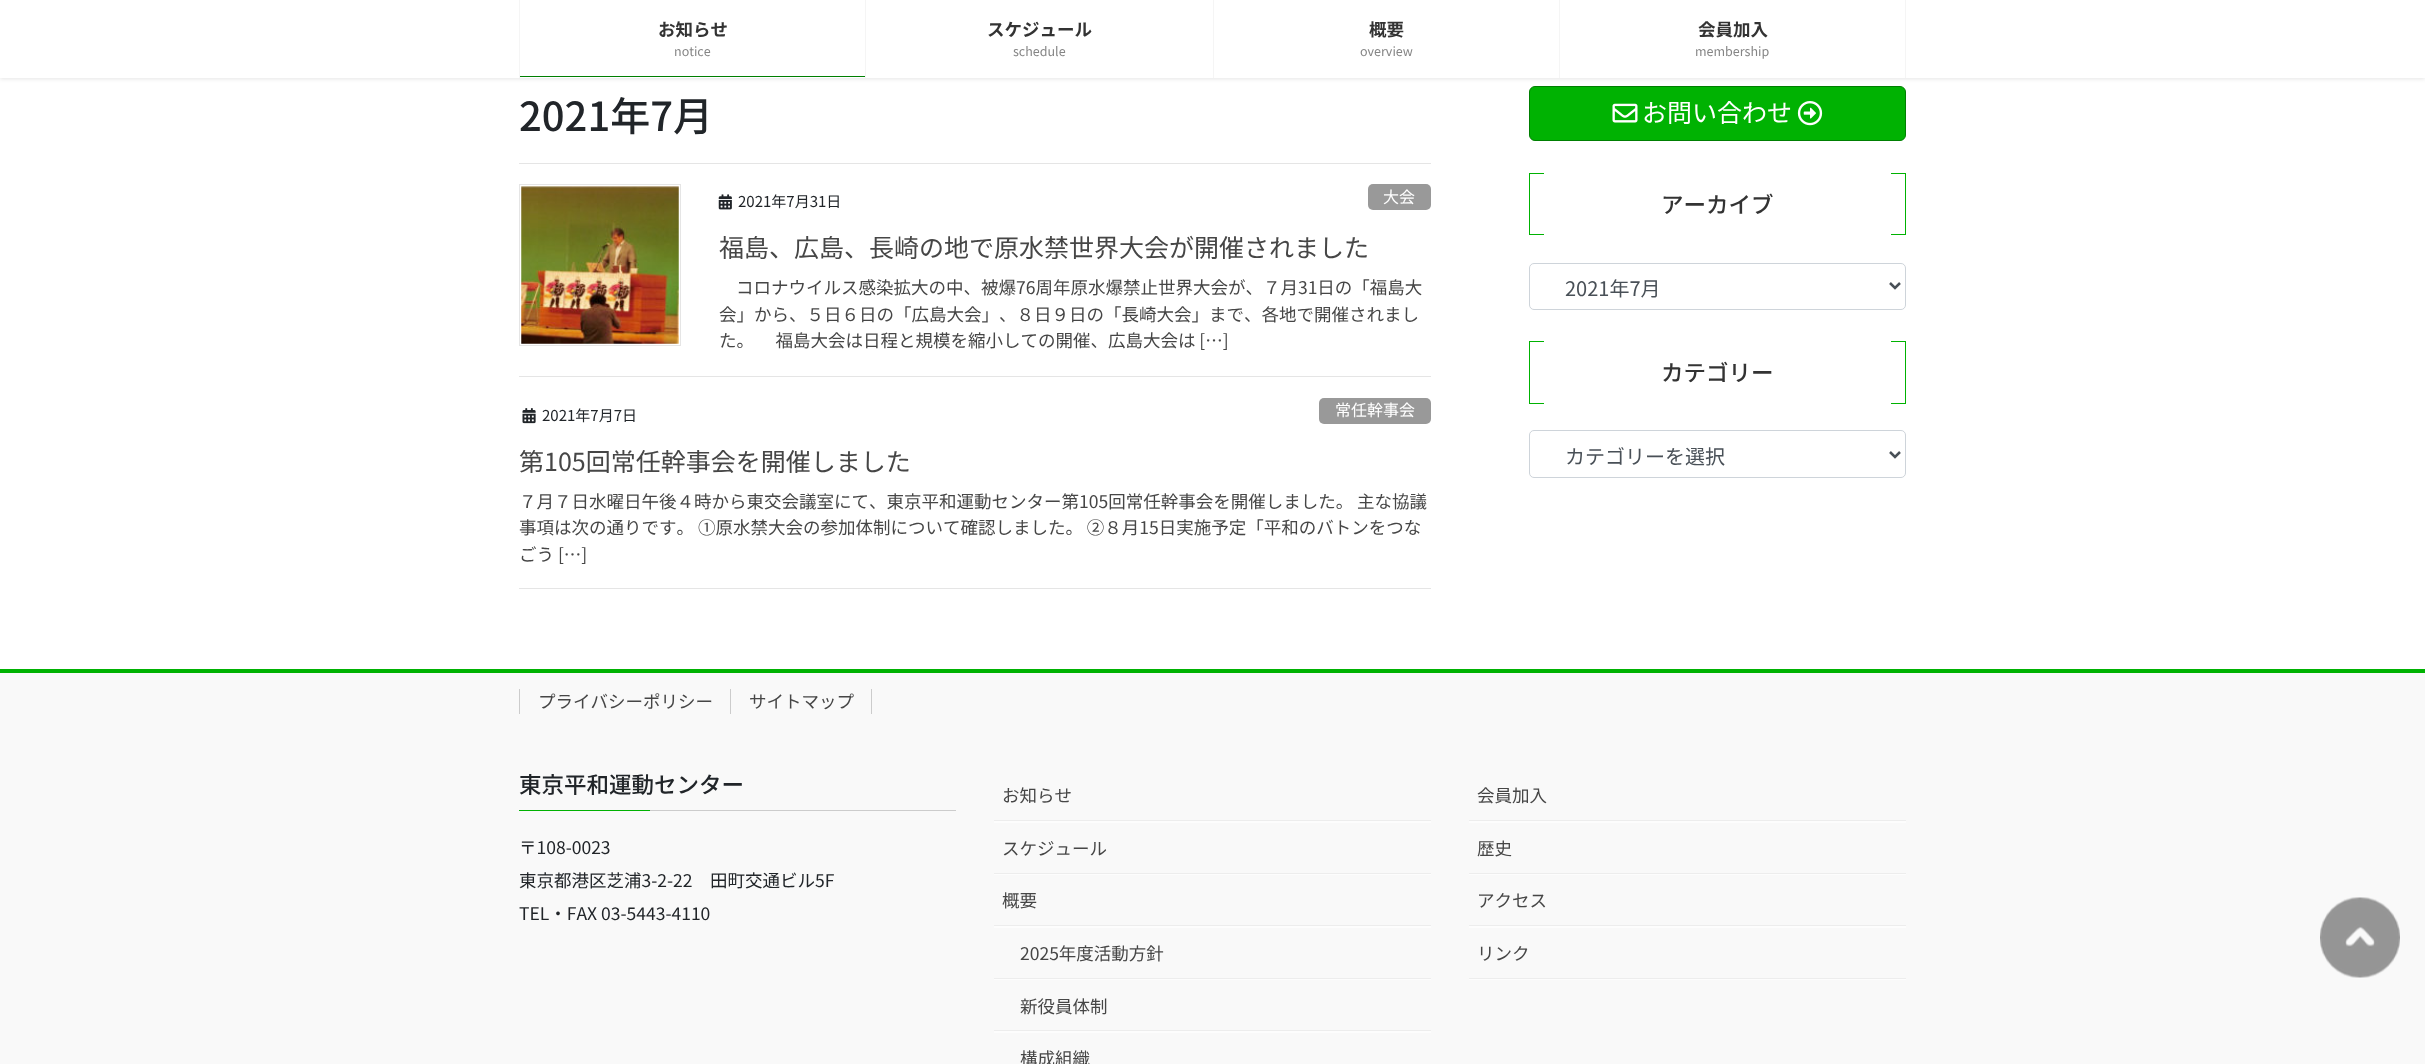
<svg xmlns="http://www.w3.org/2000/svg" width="2425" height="1064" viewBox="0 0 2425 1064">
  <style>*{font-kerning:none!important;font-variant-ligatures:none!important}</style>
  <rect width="100%" height="100%" fill="rgb(255,255,255)"/>
  <rect x="0" y="1" width="2425" height="78" fill="rgba(0,0,0,0.1)" filter="blur(2px)"/>
  <rect x="0" y="0" width="2425" height="78" fill="rgb(255,255,255)"/>
  <rect x="519" y="0" width="1" height="78" fill="rgb(245,245,245)"/>
  <text x="658" y="36" font-family="Noto Sans JP" font-size="17.5" font-weight="bold" fill="rgb(51,51,51)">お知らせ</text>
  <text x="674" y="56" font-family="Noto Sans JP" font-size="12.5" fill="rgb(133,133,133)">notice</text>
  <rect x="520" y="76" width="345" height="1" fill="rgb(0,127,2)"/>
  <rect x="865" y="0" width="1" height="78" fill="rgb(245,245,245)"/>
  <text x="987" y="36" font-family="Noto Sans JP" font-size="17.5" font-weight="bold" fill="rgb(51,51,51)">スケジュール</text>
  <text x="1013" y="56" font-family="Noto Sans JP" font-size="12.5" fill="rgb(133,133,133)">schedule</text>
  <rect x="1213" y="0" width="1" height="78" fill="rgb(245,245,245)"/>
  <text x="1369" y="36" font-family="Noto Sans JP" font-size="17.5" font-weight="bold" fill="rgb(51,51,51)">概要</text>
  <text x="1360" y="56" font-family="Noto Sans JP" font-size="12.5" fill="rgb(133,133,133)">overview</text>
  <rect x="1905" y="0" width="1" height="78" fill="rgb(245,245,245)"/>
  <rect x="1559" y="0" width="1" height="78" fill="rgb(245,245,245)"/>
  <text x="1698" y="36" font-family="Noto Sans JP" font-size="17.5" font-weight="bold" fill="rgb(51,51,51)">会員加入</text>
  <text x="1695" y="56" font-family="Noto Sans JP" font-size="12.5" fill="rgb(133,133,133)">membership</text>
  <text x="519" y="131" font-family="Noto Sans JP" font-size="40" font-weight="500" fill="rgb(33,37,41)">2021年7月</text>
  <rect x="519" y="163" width="912" height="1" fill="rgb(229,229,229)"/>
  <rect x="519" y="376" width="912" height="1" fill="rgb(229,229,229)"/>
  <rect x="519.5" y="184.5" width="161" height="161" fill="none" stroke="rgb(229,229,229)"/>
  <image x="521" y="186" width="158" height="158" href="pic1.png"/>
  <image x="718" y="194" width="14" height="16" href="pic2.png"/>
  <text x="738" y="207" font-family="Noto Sans JP" font-size="15" fill="rgb(33,37,41)">2021年7月31日</text>
  <rect x="1368" y="184" width="63" height="26" rx="5" fill="rgb(153,153,153)"/>
  <text x="1383" y="203" font-family="Noto Sans JP" font-size="16" fill="rgb(255,255,255)">大会</text>
  <text x="719" y="257" font-family="Noto Sans JP" font-size="25" fill="rgb(70,70,70)">福島、広島、長崎の地で原水禁世界大会が開催されました</text>
  <g font-family="Noto Sans JP" font-size="17.5" fill="rgb(70,70,70)">
    <text x="736" y="294">コロナウイルス感染拡大の中、被爆76周年原水爆禁止世界大会が、７月31日の「福島大</text>
    <text x="719" y="321">会」から、５日６日の「広島大会」</text>
    <text x="999" y="321">、８日９日の「長崎大会」まで、各地で開催されまし</text>
    <text x="719" y="347">た。 　福島大会は日程と規模を縮小しての開催、広島大会は […]</text>
  </g>
  <rect x="519" y="588" width="912" height="1" fill="rgb(229,229,229)"/>
  <image x="522" y="408" width="14" height="16" href="pic3.png"/>
  <text x="542" y="421" font-family="Noto Sans JP" font-size="15" fill="rgb(33,37,41)">2021年7月7日</text>
  <rect x="1319" y="398" width="112" height="26" rx="5" fill="rgb(153,153,153)"/>
  <text x="1335" y="416" font-family="Noto Sans JP" font-size="16" fill="rgb(255,255,255)">常任幹事会</text>
  <text x="519" y="471" font-family="Noto Sans JP" font-size="25" fill="rgb(70,70,70)">第105回常任幹事会を開催しました</text>
  <g font-family="Noto Sans JP" font-size="17.5" fill="rgb(70,70,70)">
    <text>
      <tspan x="519" y="508">７月７日水曜日午後４時から東交会議室にて、東京平和運動センター第105回常任幹事会を開催しました。 主な協議</tspan>
      <tspan x="519" y="534">事項は次の通りです。 ①原水禁大会の参加体制について確認しました。 ②８月15日実施予定「平和のバトンをつな</tspan>
      <tspan x="519" y="561">ごう […]</tspan>
    </text>
  </g>
  <rect x="1529.5" y="86.5" width="376" height="54" rx="5.5" fill="rgb(0,178,2)" stroke="rgb(0,127,2)"/>
  <image x="1612" y="103" width="26" height="20" href="pic4.png"/>
  <text x="1642" y="122" font-family="Noto Sans JP" font-size="25" fill="rgb(255,255,255)">お問い合わせ</text>
  <image x="1797" y="101" width="26" height="25" href="pic5.png"/>
  <rect x="1529" y="173" width="15" height="1" fill="rgb(0,178,2)"/>
  <rect x="1529" y="234" width="15" height="1" fill="rgb(0,178,2)"/>
  <rect x="1529" y="173" width="1" height="62" fill="rgb(0,178,2)"/>
  <text x="1661" y="213" font-family="Noto Sans JP" font-size="22.5" font-weight="500" fill="rgb(51,51,51)">アーカイブ</text>
  <rect x="1891" y="173" width="15" height="1" fill="rgb(0,178,2)"/>
  <rect x="1905" y="173" width="1" height="62" fill="rgb(0,178,2)"/>
  <rect x="1891" y="234" width="15" height="1" fill="rgb(0,178,2)"/>
  <rect x="1529.5" y="263.5" width="376" height="46" rx="4.5" fill="none" stroke="rgb(206,212,218)"/>
  <path d="M1890 283L1895 288L1900 283" fill="none" stroke="rgb(73,80,87)" stroke-width="2.5"/>
  <text x="1565" y="296" font-family="Noto Sans JP" font-size="20" fill="rgb(73,80,87)">2021年7月</text>
  <rect x="1529" y="341" width="15" height="1" fill="rgb(0,178,2)"/>
  <rect x="1529" y="403" width="15" height="1" fill="rgb(0,178,2)"/>
  <rect x="1529" y="341" width="1" height="63" fill="rgb(0,178,2)"/>
  <text x="1661" y="381" font-family="Noto Sans JP" font-size="22.5" font-weight="500" fill="rgb(51,51,51)">カテゴリー</text>
  <rect x="1891" y="341" width="15" height="1" fill="rgb(0,178,2)"/>
  <rect x="1905" y="341" width="1" height="63" fill="rgb(0,178,2)"/>
  <rect x="1891" y="403" width="15" height="1" fill="rgb(0,178,2)"/>
  <rect x="1529.5" y="430.5" width="376" height="47" rx="4.5" fill="none" stroke="rgb(206,212,218)"/>
  <path d="M1890 452L1895 457L1900 452" fill="none" stroke="rgb(73,80,87)" stroke-width="2.5"/>
  <text x="1565" y="464" font-family="Noto Sans JP" font-size="20" fill="rgb(73,80,87)">カテゴリーを選択</text>
  <rect x="0" y="673" width="2425" height="391" fill="rgb(249,249,249)"/>
  <rect x="0" y="669" width="2425" height="4" fill="rgb(0,178,2)"/>
  <text x="538" y="708" font-family="Noto Sans JP" font-size="17.5" fill="rgb(70,70,70)">プライバシーポリシー</text>
  <rect x="519" y="689" width="1" height="25" fill="rgb(204,204,204)"/>
  <text x="749" y="708" font-family="Noto Sans JP" font-size="17.5" fill="rgb(70,70,70)">サイトマップ</text>
  <rect x="871" y="689" width="1" height="25" fill="rgb(204,204,204)"/>
  <rect x="730" y="689" width="1" height="25" fill="rgb(204,204,204)"/>
  <rect x="650" y="810" width="306" height="1" fill="rgb(204,204,204)"/>
  <text x="519" y="793" font-family="Noto Sans JP" font-size="22.5" font-weight="500" fill="rgb(33,37,41)">東京平和運動センター</text>
  <rect x="519" y="810" width="131" height="1" fill="rgb(0,178,2)"/>
  <g font-family="Noto Sans JP" font-size="17.5" fill="rgb(33,37,41)">
    <text>
      <tspan x="519" y="854">〒108-0023</tspan>
      <tspan x="519" y="887">東京都港区芝浦3-2-22　田町交通ビル5F</tspan>
      <tspan x="519" y="920">TEL・FAX 03-5443-4110</tspan>
    </text>
  </g>
  <rect x="994" y="821" width="437" height="2" fill="rgb(253,253,253)"/>
  <rect x="994" y="820" width="437" height="1" fill="rgb(237,237,237)"/>
  <text x="1002" y="802" font-family="Noto Sans JP" font-size="17.5" fill="rgb(70,70,70)">お知らせ</text>
  <rect x="994" y="874" width="437" height="1" fill="rgb(253,253,253)"/>
  <rect x="994" y="873" width="437" height="1" fill="rgb(237,237,237)"/>
  <text x="1002" y="855" font-family="Noto Sans JP" font-size="17.5" fill="rgb(70,70,70)">スケジュール</text>
  <rect x="994" y="926" width="437" height="2" fill="rgb(253,253,253)"/>
  <rect x="994" y="925" width="437" height="1" fill="rgb(237,237,237)"/>
  <text x="1002" y="907" font-family="Noto Sans JP" font-size="17.5" fill="rgb(70,70,70)">概要</text>
  <rect x="994" y="979" width="437" height="1" fill="rgb(253,253,253)"/>
  <rect x="994" y="978" width="437" height="1" fill="rgb(237,237,237)"/>
  <text x="1020" y="960" font-family="Noto Sans JP" font-size="17.5" fill="rgb(70,70,70)">2025年度活動方針</text>
  <rect x="994" y="1031" width="437" height="2" fill="rgb(253,253,253)"/>
  <rect x="994" y="1030" width="437" height="1" fill="rgb(237,237,237)"/>
  <g font-family="Noto Sans JP" font-size="17.5" fill="rgb(70,70,70)">
    <text x="1020" y="1013">新役員体制</text>
    <text x="1020" y="1065">構成組織</text>
  </g>
  <rect x="1469" y="821" width="437" height="2" fill="rgb(253,253,253)"/>
  <rect x="1469" y="820" width="437" height="1" fill="rgb(237,237,237)"/>
  <text x="1477" y="802" font-family="Noto Sans JP" font-size="17.5" fill="rgb(70,70,70)">会員加入</text>
  <rect x="1469" y="874" width="437" height="1" fill="rgb(253,253,253)"/>
  <rect x="1469" y="873" width="437" height="1" fill="rgb(237,237,237)"/>
  <text x="1477" y="855" font-family="Noto Sans JP" font-size="17.5" fill="rgb(70,70,70)">歴史</text>
  <rect x="1469" y="926" width="437" height="2" fill="rgb(253,253,253)"/>
  <rect x="1469" y="925" width="437" height="1" fill="rgb(237,237,237)"/>
  <text x="1477" y="907" font-family="Noto Sans JP" font-size="17.5" fill="rgb(70,70,70)">アクセス</text>
  <rect x="1469" y="979" width="437" height="1" fill="rgb(253,253,253)"/>
  <rect x="1469" y="978" width="437" height="1" fill="rgb(237,237,237)"/>
  <text x="1477" y="960" font-family="Noto Sans JP" font-size="17.5" fill="rgb(70,70,70)">リンク</text>
  <image x="2320" y="897" width="80" height="81" href="pic6.png"/>
</svg>
